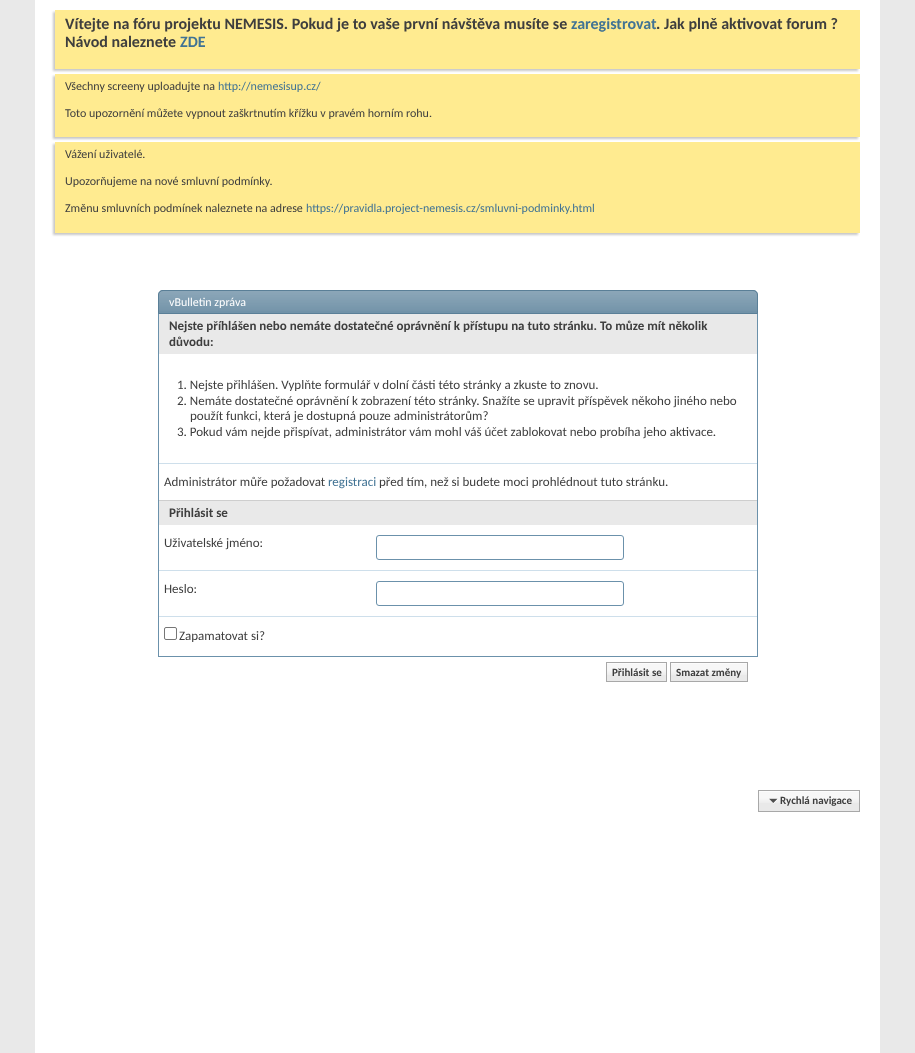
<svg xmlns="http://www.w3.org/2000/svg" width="915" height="1053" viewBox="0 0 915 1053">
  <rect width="100%" height="100%" fill="rgb(233,233,233)"/>
  <rect x="35" y="0" width="845" height="1053" fill="rgb(255,255,255)"/>
  <rect x="53" y="12" width="805" height="59" fill="rgb(200,200,200)" filter="blur(1px)"/>
  <rect x="55" y="10" width="805" height="59" fill="rgb(255,235,144)"/>
  <text x="65" y="29" font-family="Carlito" font-size="16" font-weight="bold" fill="rgb(62,62,62)">Vítejte na fóru projektu NEMESIS. Pokud je to vaše první návštěva musíte se</text>
  <text x="571" y="29" font-family="Carlito" font-size="16" font-weight="bold" fill="rgb(65,115,148)">zaregistrovat</text>
  <g font-family="Carlito" font-size="16" font-weight="bold" fill="rgb(62,62,62)">
    <text x="656" y="29">. Jak plně aktivovat forum ?</text>
    <text x="65" y="47">Návod naleznete</text>
  </g>
  <text x="180" y="47" font-family="Carlito" font-size="16" font-weight="bold" fill="rgb(65,115,148)">ZDE</text>
  <rect x="53" y="76" width="805" height="63" fill="rgb(200,200,200)" filter="blur(1px)"/>
  <rect x="55" y="74" width="805" height="63" fill="rgb(255,235,144)"/>
  <text x="65" y="90" font-family="Carlito" font-size="12" fill="rgb(62,62,62)">Všechny screeny uploadujte na</text>
  <text x="218" y="90" font-family="Carlito" font-size="12" fill="rgb(65,115,148)">http://nemesisup.cz/</text>
  <text x="65" y="117" font-family="Carlito" font-size="12" fill="rgb(62,62,62)">Toto upozornění můžete vypnout zaškrtnutím křížku v pravém horním rohu.</text>
  <rect x="53" y="144" width="805" height="91" fill="rgb(200,200,200)" filter="blur(1px)"/>
  <rect x="55" y="142" width="805" height="91" fill="rgb(255,235,144)"/>
  <g font-family="Carlito" font-size="12" fill="rgb(62,62,62)">
    <text x="65" y="158">Vážení uživatelé.</text>
    <text x="65" y="185">Upozorňujeme na nové smluvní podmínky.</text>
    <text x="65" y="212">Změnu smluvních podmínek naleznete na adrese</text>
  </g>
  <text x="306" y="212" font-family="Carlito" font-size="12" fill="rgb(65,115,148)">https://pravidla.project-nemesis.cz/smluvni-podminky.html</text>
  <path d="M163 290H753C756 290 758 292 758 295V314H158V295C158 292 160 290 163 290Z" fill="rgb(113,146,168)"/>
  <image x="158" y="291" width="600" height="20" href="pic1.png"/>
  <path d="M163 290.5H753C755.5 290.5 757.5 292.5 757.5 295V313.5H158.5V295C158.5 292.5 160.5 290.5 163 290.5Z" fill="none" stroke="rgb(90,127,151)"/>
  <text x="169" y="306" font-family="Carlito" font-size="12" fill="rgb(255,255,255)">vBulletin zpráva</text>
  <rect x="757" y="314" width="1" height="343" fill="rgb(107,145,171)"/>
  <rect x="158" y="656" width="600" height="1" fill="rgb(107,145,171)"/>
  <rect x="158" y="314" width="1" height="343" fill="rgb(107,145,171)"/>
  <rect x="159" y="314" width="598" height="40" fill="rgb(233,233,233)"/>
  <g font-family="Carlito" font-size="13" font-weight="bold" fill="rgb(62,62,62)">
    <text>
      <tspan x="169" y="330">Nejste příhlášen nebo nemáte dostatečné oprávnění k přístupu na tuto stránku. To můze mít několik</tspan>
      <tspan x="169" y="346">důvodu:</tspan>
    </text>
  </g>
  <g font-family="Carlito" font-size="13" fill="rgb(62,62,62)">
    <text>
      <tspan x="177" y="389">1. Nejste přihlášen. Vyplňte formulář v dolní části této stránky a zkuste to znovu.</tspan>
      <tspan x="177" y="405">2. Nemáte dostatečné oprávnění k zobrazení této stránky. Snažíte se upravit příspěvek někoho jiného nebo</tspan>
    </text>
    <text x="190" y="420">použít funkci, která je dostupná pouze administrátorům?</text>
    <text x="177" y="436">3. Pokud vám nejde přispívat, administrátor vám mohl váš účet zablokovat nebo probíha jeho aktivace.</text>
  </g>
  <rect x="159" y="463" width="598" height="1" fill="rgb(206,223,235)"/>
  <text x="164" y="486" font-family="Carlito" font-size="13" fill="rgb(62,62,62)">Administrátor můře požadovat</text>
  <text x="328" y="486" font-family="Carlito" font-size="13" fill="rgb(65,115,148)">registraci</text>
  <text x="379" y="486" font-family="Carlito" font-size="13" fill="rgb(62,62,62)">před tím, než si budete moci prohlédnout tuto stránku.</text>
  <rect x="159" y="501" width="598" height="24" fill="rgb(233,233,233)"/>
  <rect x="159" y="500" width="598" height="1" fill="rgb(206,206,206)"/>
  <text x="169" y="517" font-family="Carlito" font-size="13" font-weight="bold" fill="rgb(62,62,62)">Přihlásit se</text>
  <text x="164" y="547" font-family="Carlito" font-size="13" fill="rgb(62,62,62)">Uživatelské jméno:</text>
  <rect x="376.5" y="535.5" width="247" height="24" rx="2.5" fill="none" stroke="rgb(107,145,171)"/>
  <rect x="159" y="570" width="598" height="1" fill="rgb(206,223,235)"/>
  <text x="164" y="593" font-family="Carlito" font-size="13" fill="rgb(62,62,62)">Heslo:</text>
  <rect x="376.5" y="581.5" width="247" height="24" rx="2.5" fill="none" stroke="rgb(107,145,171)"/>
  <rect x="159" y="616" width="598" height="1" fill="rgb(206,223,235)"/>
  <rect x="164.5" y="627.5" width="12" height="12" rx="1.5" fill="none" stroke="rgb(118,118,118)"/>
  <text x="179" y="640" font-family="Carlito" font-size="13" fill="rgb(62,62,62)">Zapamatovat si?</text>
  <rect x="607" y="663" width="59" height="18" fill="rgb(233,233,233)"/>
  <image x="607" y="663" width="59" height="12" href="pic2.png"/>
  <rect x="606.5" y="662.5" width="60" height="19" fill="none" stroke="rgb(168,168,168)"/>
  <text x="612" y="676" font-family="Carlito" font-size="11" font-weight="bold" fill="rgb(62,62,62)">Přihlásit se</text>
  <rect x="671" y="663" width="76" height="18" fill="rgb(233,233,233)"/>
  <image x="671" y="663" width="76" height="12" href="pic3.png"/>
  <rect x="670.5" y="662.5" width="77" height="19" fill="none" stroke="rgb(168,168,168)"/>
  <text x="676" y="676" font-family="Carlito" font-size="11" font-weight="bold" fill="rgb(62,62,62)">Smazat změny</text>
  <rect x="759" y="791" width="100" height="20" fill="rgb(233,233,233)"/>
  <image x="759" y="791" width="100" height="12" href="pic4.png"/>
  <rect x="758.5" y="790.5" width="101" height="21" fill="none" stroke="rgb(168,168,168)"/>
  <image x="769" y="798" width="9" height="6" href="pic5.png"/>
  <text x="780" y="804" font-family="Carlito" font-size="11" font-weight="bold" fill="rgb(62,62,62)">Rychlá navigace</text>
</svg>
